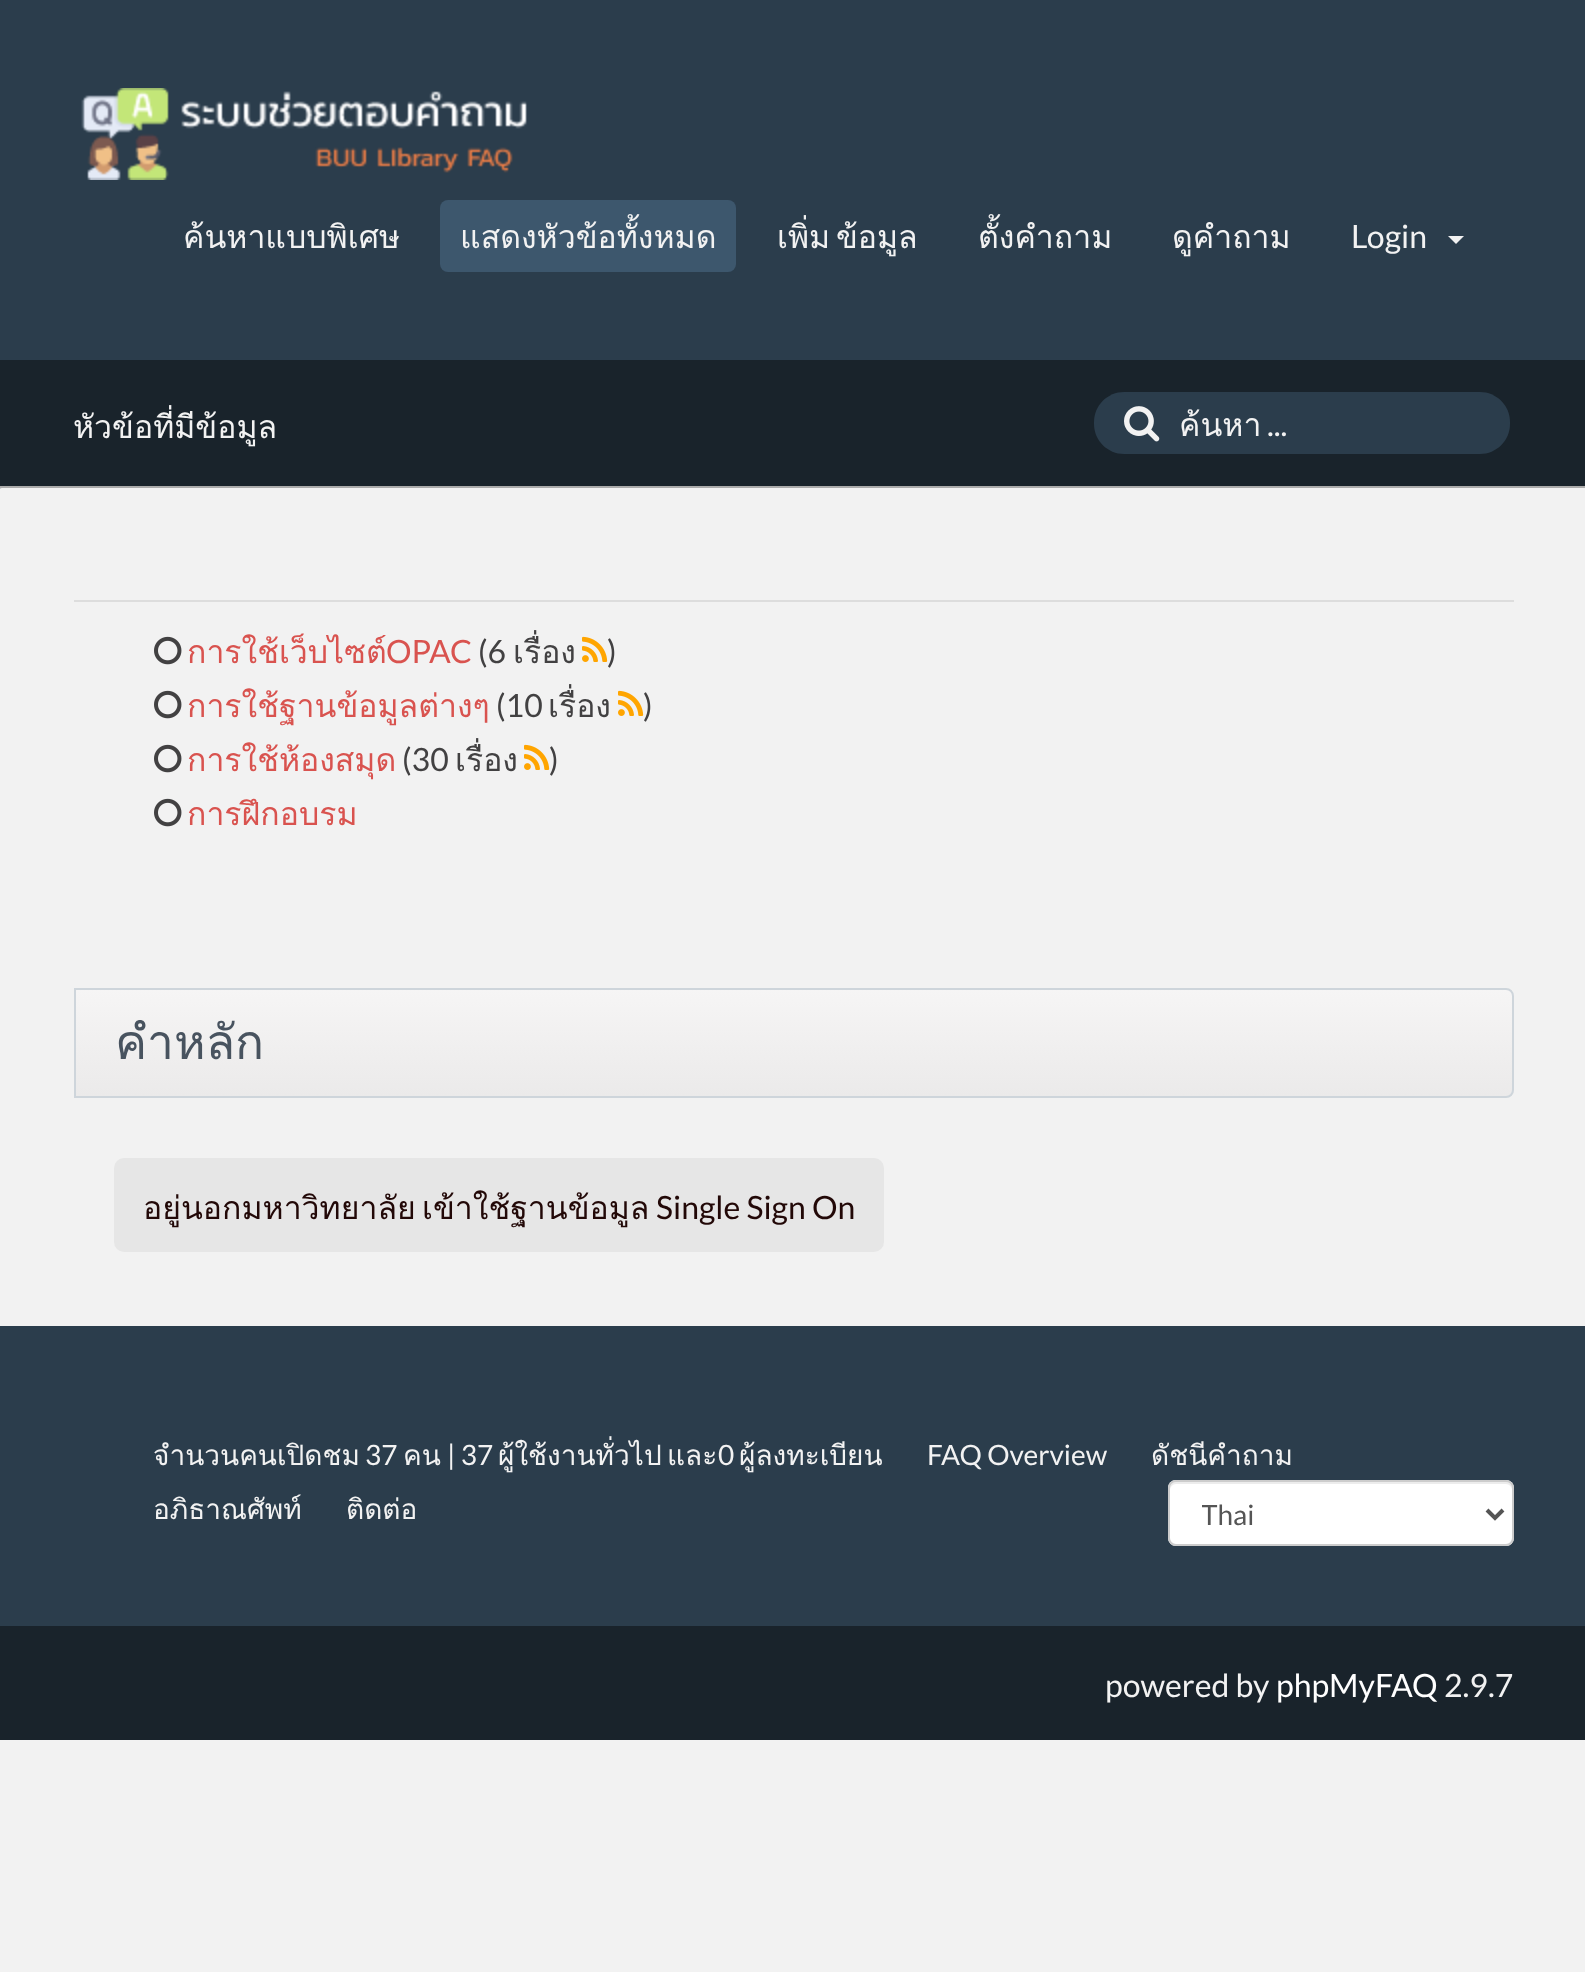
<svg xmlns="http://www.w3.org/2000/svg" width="1585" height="1972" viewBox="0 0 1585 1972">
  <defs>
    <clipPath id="clip1"><rect x="1178" y="400" width="320" height="50"/></clipPath>
    <clipPath id="clip2"><rect x="0" y="486" width="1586" height="840"/></clipPath>
    <clipPath id="clip3"><path d="M74 988H1506C1510.5 988 1514 991.5 1514 996V1090C1514 1094.5 1510.5 1098 1506 1098H74Z"/></clipPath>
    <linearGradient id="g1" gradientUnits="userSpaceOnUse" x1="794" y1="990" x2="794" y2="1096"><stop offset="0" stop-color="rgb(246,245,245)"/><stop offset="1" stop-color="rgb(235,234,234)"/></linearGradient>
    <clipPath id="clip4"><rect x="1202" y="1494" width="254" height="38"/></clipPath>
  </defs>
  <rect width="100%" height="100%" fill="rgb(242,242,242)"/>
  <rect x="0" y="0" width="1585" height="360" fill="rgb(43,61,76)"/>
  <image x="81" y="88" width="446" height="92" href="pic1.png"/>
  <text x="183" y="248" font-family="Loma" font-size="32" fill="rgb(242,242,242)">ค้นหาแบบพิเศษ</text>
  <rect x="440" y="200" width="296" height="72" rx="8" fill="rgb(61,87,109)"/>
  <g font-family="Loma" font-size="32" fill="rgb(242,242,242)">
    <text x="460" y="248">แสดงหัวข้อทั้งหมด</text>
    <text x="777" y="248" word-spacing="-5">เพิ่ม ข้อมูล</text>
    <text x="978" y="248">ตั้งคำถาม</text>
    <text x="1172" y="248">ดูคำถาม</text>
  </g>
  <text x="1351" y="248" font-family="Lato" font-size="32" fill="rgb(242,242,242)">Login</text>
  <path d="M1448 236H1464L1456 244Z" fill="rgb(242,242,242)"/>
  <rect x="0" y="360" width="1585" height="126" fill="rgb(25,35,43)"/>
  <text x="73" y="438" font-family="Loma" font-size="32" fill="rgb(242,242,242)">หัวข้อที่มีข้อมูล</text>
  <path d="M1124 392H1168V454H1124C1107.5 454 1094 440.5 1094 424V422C1094 405.5 1107.5 392 1124 392Z" fill="rgb(43,61,76)"/>
  <image x="1124" y="406" width="36" height="36" href="pic2.png"/>
  <path d="M1166 392H1480C1496.5 392 1510 405.5 1510 422V424C1510 440.5 1496.5 454 1480 454H1166Z" fill="rgb(43,61,76)"/>
  <g clip-path="url(#clip1)">
    <text x="1179" y="436" font-family="Loma" font-size="32" fill="rgb(242,242,242)">ค้นหา</text>
  </g>
  <text x="1267" y="436" font-family="Lato" font-size="32" fill="rgb(242,242,242)">...</text>
  <g clip-path="url(#clip2)">
    <path d="M-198 288H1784V1524H-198ZM2 488H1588C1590 488 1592 490 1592 492V1332C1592 1334 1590 1336 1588 1336H2C0 1336-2 1334-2 1332V492C-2 490 0 488 2 488Z" fill="rgb(171,171,171)" fill-rule="evenodd"/>
  </g>
  <rect x="74" y="600" width="1440" height="2" fill="rgb(221,221,221)"/>
  <image x="154" y="636" width="28" height="29" href="pic3.png"/>
  <text x="187" y="663" font-family="Loma" font-size="32" fill="rgb(217,83,79)">การใช้เว็บไซต์</text>
  <text x="386" y="663" font-family="Lato" font-size="32" fill="rgb(217,83,79)">OPAC</text>
  <text x="478" y="663" font-family="Lato" font-size="32" fill="rgb(66,65,66)">(6</text>
  <text x="513" y="663" font-family="Loma" font-size="32" fill="rgb(66,65,66)">เรื่อง</text>
  <image x="582" y="636" width="26" height="26" href="pic4.png"/>
  <text x="607" y="663" font-family="Lato" font-size="32" fill="rgb(66,65,66)">)</text>
  <image x="154" y="690" width="28" height="29" href="pic3.png"/>
  <text x="187" y="717" font-family="Loma" font-size="32" fill="rgb(217,83,79)">การใช้ฐานข้อมูลต่างๆ</text>
  <text x="496" y="717" font-family="Lato" font-size="32" fill="rgb(66,65,66)">(10</text>
  <text x="548" y="717" font-family="Loma" font-size="32" fill="rgb(66,65,66)">เรื่อง</text>
  <image x="618" y="690" width="26" height="26" href="pic4.png"/>
  <text x="643" y="717" font-family="Lato" font-size="32" fill="rgb(66,65,66)">)</text>
  <image x="154" y="744" width="28" height="29" href="pic3.png"/>
  <text x="187" y="771" font-family="Loma" font-size="32" fill="rgb(217,83,79)">การใช้ห้องสมุด</text>
  <text x="402" y="771" font-family="Lato" font-size="32" fill="rgb(66,65,66)">(30</text>
  <text x="455" y="771" font-family="Loma" font-size="32" fill="rgb(66,65,66)">เรื่อง</text>
  <image x="524" y="744" width="26" height="26" href="pic4.png"/>
  <text x="549" y="771" font-family="Lato" font-size="32" fill="rgb(66,65,66)">)</text>
  <image x="154" y="798" width="28" height="29" href="pic3.png"/>
  <text x="187" y="825" font-family="Loma" font-size="32" fill="rgb(217,83,79)">การฝึกอบรม</text>
  <g clip-path="url(#clip3)">
    <rect x="76" y="990" width="1438" height="106" fill="url(#g1)"/>
  </g>
  <path d="M75 989H1506C1510 989 1513 992 1513 996V1090C1513 1094 1510 1097 1506 1097H75Z" fill="none" stroke="rgb(206,213,219)" stroke-width="2"/>
  <text x="115" y="1059" font-family="Loma" font-size="48" fill="rgb(72,83,95)">คำหลัก</text>
  <rect x="114" y="1158" width="770" height="94" rx="10" fill="rgb(230,230,230)"/>
  <g font-family="Loma" font-size="32" fill="rgb(34,8,7)">
    <text x="143" y="1219">อยู่นอกมหาวิทยาลัย</text>
    <text x="422" y="1219">เข้าใช้ฐานข้อมูล</text>
  </g>
  <text x="656" y="1219" font-family="Lato" font-size="32" fill="rgb(34,8,7)">Single Sign On</text>
  <rect x="0" y="1326" width="1585" height="300" fill="rgb(43,61,76)"/>
  <text x="153" y="1465" font-family="Loma" font-size="28" fill="rgb(242,242,242)">จำนวนคนเปิดชม</text>
  <text x="365" y="1465" font-family="Lato" font-size="28" fill="rgb(242,242,242)">37</text>
  <text x="403" y="1465" font-family="Loma" font-size="28" fill="rgb(242,242,242)">คน</text>
  <text x="447" y="1465" font-family="Lato" font-size="28" fill="rgb(242,242,242)">| 37</text>
  <g font-family="Loma" font-size="28" fill="rgb(242,242,242)">
    <text x="498" y="1465">ผู้ใช้งานทั่วไป</text>
    <text x="667" y="1465">และ</text>
  </g>
  <text x="718" y="1465" font-family="Lato" font-size="28" fill="rgb(242,242,242)">0</text>
  <text x="739" y="1465" font-family="Loma" font-size="28" fill="rgb(242,242,242)">ผู้ลงทะเบียน</text>
  <text x="927" y="1465" font-family="Lato" font-size="28" fill="rgb(242,242,242)">FAQ Overview</text>
  <g font-family="Loma" font-size="28" fill="rgb(242,242,242)">
    <text x="1151" y="1465">ดัชนีคำถาม</text>
    <text x="153" y="1519">อภิธาณศัพท์</text>
    <text x="346" y="1519">ติดต่อ</text>
  </g>
  <rect x="1168" y="1480" width="346" height="66" rx="8" fill="rgb(255,255,255)"/>
  <path d="M1176 1484H1506C1509 1484 1512 1487 1512 1490V1488C1512 1485 1509 1482 1506 1482H1176C1173 1482 1170 1485 1170 1488V1490C1170 1487 1173 1484 1176 1484Z" fill="rgb(236,236,236)"/>
  <rect x="1169" y="1481" width="344" height="64" rx="7" fill="none" stroke="rgb(204,204,204)" stroke-width="2"/>
  <path d="M1487 1510L1495 1518L1503 1510" fill="none" stroke="rgb(85,85,85)" stroke-width="4"/>
  <g clip-path="url(#clip4)">
    <text x="1201" y="1525" font-family="Lato" font-size="28" fill="rgb(85,85,85)">Thai</text>
  </g>
  <rect x="0" y="1626" width="1585" height="114" fill="rgb(25,35,43)"/>
  <text x="1105" y="1697" font-family="Lato" font-size="32" fill="rgb(242,242,242)">powered by</text>
  <text x="1276" y="1697" font-family="Lato" font-size="32" fill="rgb(255,255,255)">phpMyFAQ</text>
  <text x="1444" y="1697" font-family="Lato" font-size="32" fill="rgb(242,242,242)">2.9.7</text>
</svg>
